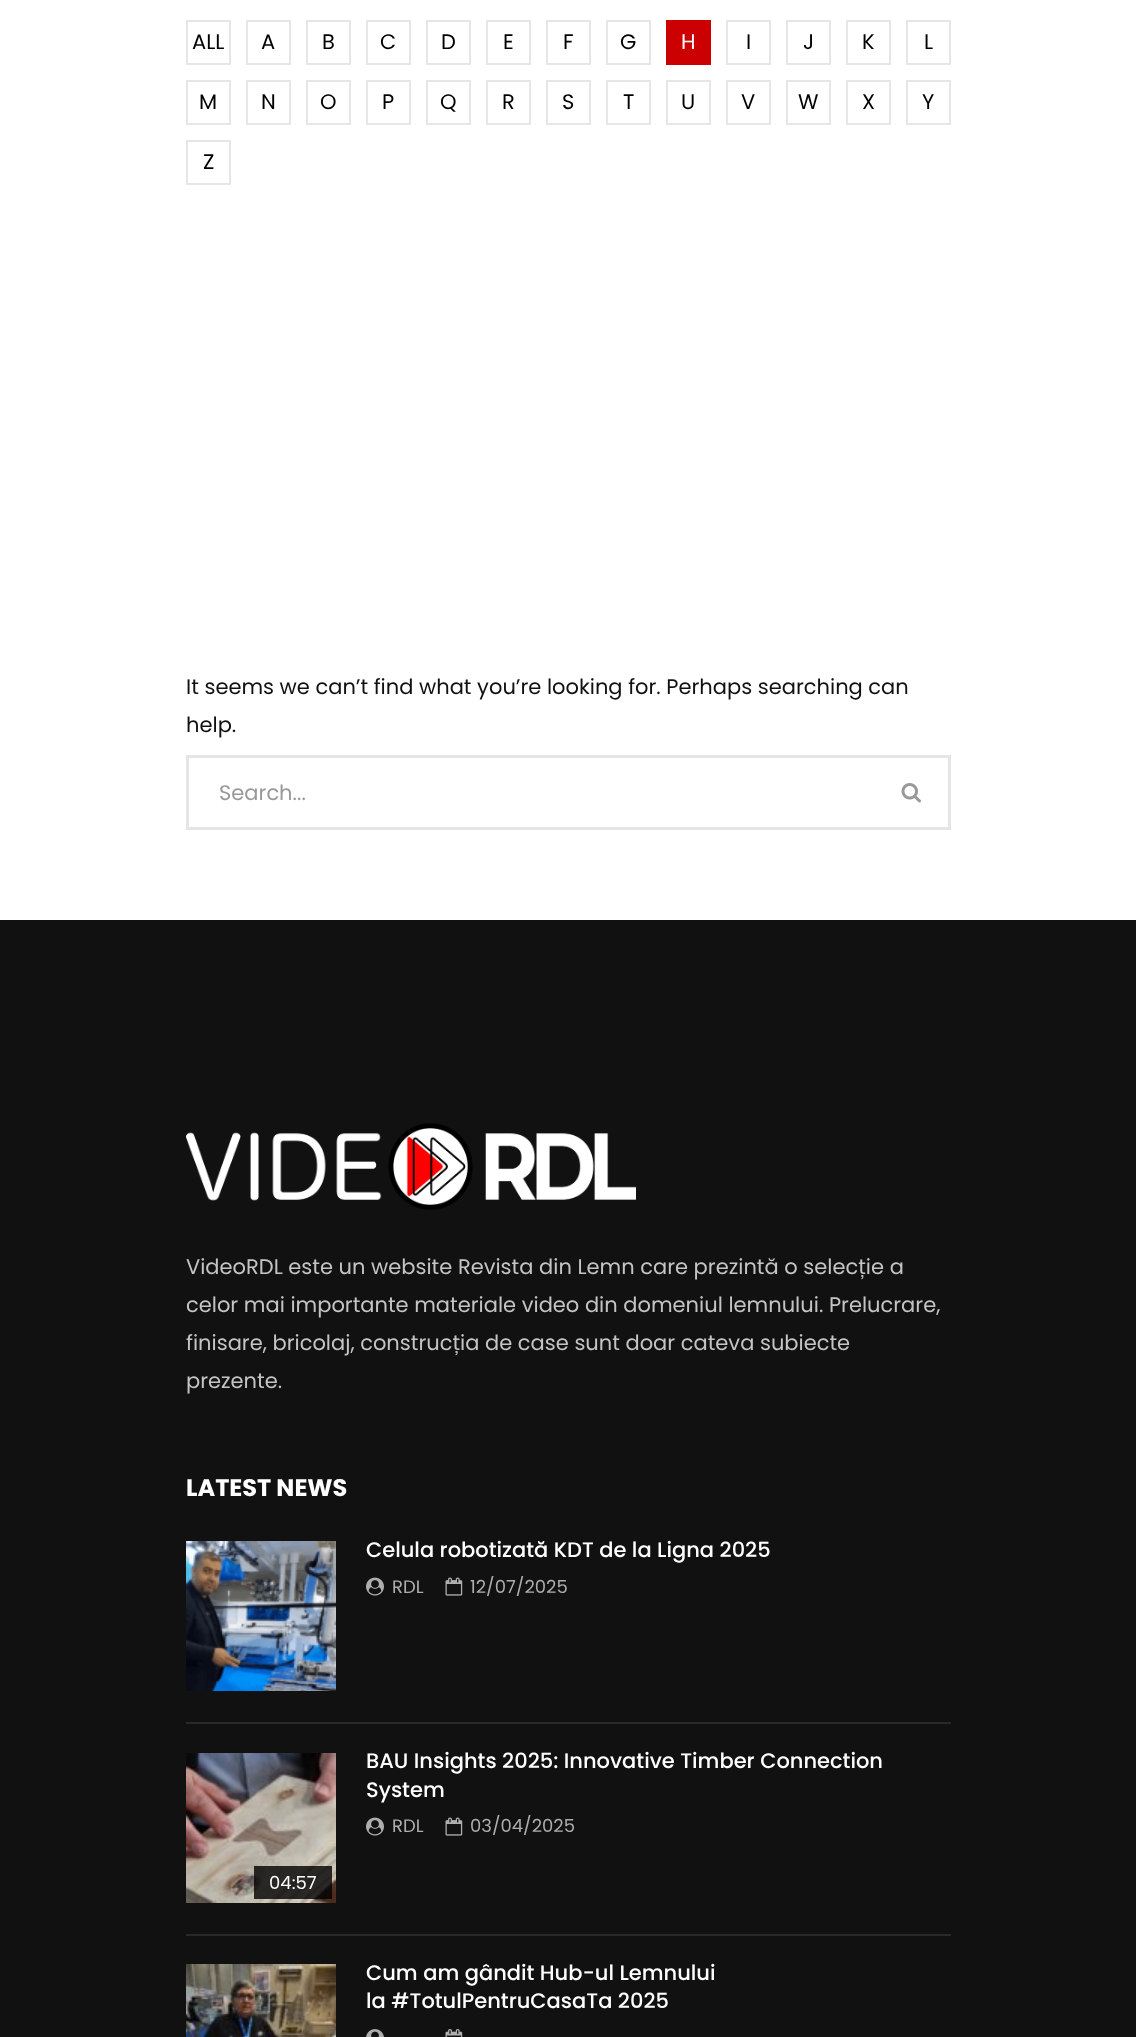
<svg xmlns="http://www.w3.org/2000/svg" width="1136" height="2037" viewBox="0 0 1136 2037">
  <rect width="100%" height="100%" fill="rgb(255,255,255)"/>
  <rect x="187" y="21" width="43" height="43" fill="none" stroke="rgb(230,230,230)" stroke-width="2"/>
  <text x="192" y="49" font-family="Poppins" font-size="21" fill="rgb(0,0,0)">ALL</text>
  <rect x="247" y="21" width="43" height="43" fill="none" stroke="rgb(230,230,230)" stroke-width="2"/>
  <text x="261" y="49" font-family="Poppins" font-size="21" fill="rgb(0,0,0)">A</text>
  <rect x="307" y="21" width="43" height="43" fill="none" stroke="rgb(230,230,230)" stroke-width="2"/>
  <text x="322" y="49" font-family="Poppins" font-size="21" fill="rgb(0,0,0)">B</text>
  <rect x="367" y="21" width="43" height="43" fill="none" stroke="rgb(230,230,230)" stroke-width="2"/>
  <text x="380" y="49" font-family="Poppins" font-size="21" fill="rgb(0,0,0)">C</text>
  <rect x="427" y="21" width="43" height="43" fill="none" stroke="rgb(230,230,230)" stroke-width="2"/>
  <text x="441" y="49" font-family="Poppins" font-size="21" fill="rgb(0,0,0)">D</text>
  <rect x="487" y="21" width="43" height="43" fill="none" stroke="rgb(230,230,230)" stroke-width="2"/>
  <text x="503" y="49" font-family="Poppins" font-size="21" fill="rgb(0,0,0)">E</text>
  <rect x="547" y="21" width="43" height="43" fill="none" stroke="rgb(230,230,230)" stroke-width="2"/>
  <text x="563" y="49" font-family="Poppins" font-size="21" fill="rgb(0,0,0)">F</text>
  <rect x="607" y="21" width="43" height="43" fill="none" stroke="rgb(230,230,230)" stroke-width="2"/>
  <text x="620" y="49" font-family="Poppins" font-size="21" fill="rgb(0,0,0)">G</text>
  <rect x="666" y="20" width="45" height="45" fill="rgb(204,0,0)"/>
  <text x="681" y="49" font-family="Poppins" font-size="21" fill="rgb(255,255,255)">H</text>
  <rect x="727" y="21" width="43" height="43" fill="none" stroke="rgb(230,230,230)" stroke-width="2"/>
  <text x="746" y="49" font-family="Poppins" font-size="21" fill="rgb(0,0,0)">I</text>
  <rect x="787" y="21" width="43" height="43" fill="none" stroke="rgb(230,230,230)" stroke-width="2"/>
  <text x="803" y="49" font-family="Poppins" font-size="21" fill="rgb(0,0,0)">J</text>
  <rect x="847" y="21" width="43" height="43" fill="none" stroke="rgb(230,230,230)" stroke-width="2"/>
  <text x="862" y="49" font-family="Poppins" font-size="21" fill="rgb(0,0,0)">K</text>
  <rect x="907" y="21" width="43" height="43" fill="none" stroke="rgb(230,230,230)" stroke-width="2"/>
  <text x="924" y="49" font-family="Poppins" font-size="21" fill="rgb(0,0,0)">L</text>
  <rect x="187" y="81" width="43" height="43" fill="none" stroke="rgb(230,230,230)" stroke-width="2"/>
  <text x="199" y="109" font-family="Poppins" font-size="21" fill="rgb(0,0,0)">M</text>
  <rect x="247" y="81" width="43" height="43" fill="none" stroke="rgb(230,230,230)" stroke-width="2"/>
  <text x="261" y="109" font-family="Poppins" font-size="21" fill="rgb(0,0,0)">N</text>
  <rect x="307" y="81" width="43" height="43" fill="none" stroke="rgb(230,230,230)" stroke-width="2"/>
  <text x="320" y="109" font-family="Poppins" font-size="21" fill="rgb(0,0,0)">O</text>
  <rect x="367" y="81" width="43" height="43" fill="none" stroke="rgb(230,230,230)" stroke-width="2"/>
  <text x="382" y="109" font-family="Poppins" font-size="21" fill="rgb(0,0,0)">P</text>
  <rect x="427" y="81" width="43" height="43" fill="none" stroke="rgb(230,230,230)" stroke-width="2"/>
  <text x="440" y="109" font-family="Poppins" font-size="21" fill="rgb(0,0,0)">Q</text>
  <rect x="487" y="81" width="43" height="43" fill="none" stroke="rgb(230,230,230)" stroke-width="2"/>
  <text x="502" y="109" font-family="Poppins" font-size="21" fill="rgb(0,0,0)">R</text>
  <rect x="547" y="81" width="43" height="43" fill="none" stroke="rgb(230,230,230)" stroke-width="2"/>
  <text x="562" y="109" font-family="Poppins" font-size="21" fill="rgb(0,0,0)">S</text>
  <rect x="607" y="81" width="43" height="43" fill="none" stroke="rgb(230,230,230)" stroke-width="2"/>
  <text x="623" y="109" font-family="Poppins" font-size="21" fill="rgb(0,0,0)">T</text>
  <rect x="667" y="81" width="43" height="43" fill="none" stroke="rgb(230,230,230)" stroke-width="2"/>
  <text x="681" y="109" font-family="Poppins" font-size="21" fill="rgb(0,0,0)">U</text>
  <rect x="727" y="81" width="43" height="43" fill="none" stroke="rgb(230,230,230)" stroke-width="2"/>
  <text x="741" y="109" font-family="Poppins" font-size="21" fill="rgb(0,0,0)">V</text>
  <rect x="787" y="81" width="43" height="43" fill="none" stroke="rgb(230,230,230)" stroke-width="2"/>
  <text x="798" y="109" font-family="Poppins" font-size="21" fill="rgb(0,0,0)">W</text>
  <rect x="847" y="81" width="43" height="43" fill="none" stroke="rgb(230,230,230)" stroke-width="2"/>
  <text x="862" y="109" font-family="Poppins" font-size="21" fill="rgb(0,0,0)">X</text>
  <rect x="907" y="81" width="43" height="43" fill="none" stroke="rgb(230,230,230)" stroke-width="2"/>
  <text x="922" y="109" font-family="Poppins" font-size="21" fill="rgb(0,0,0)">Y</text>
  <rect x="187" y="141" width="43" height="43" fill="none" stroke="rgb(230,230,230)" stroke-width="2"/>
  <text x="203" y="169" font-family="Poppins" font-size="21" fill="rgb(0,0,0)">Z</text>
  <g font-family="Poppins" font-size="21" fill="rgb(17,17,17)">
    <text>
      <tspan x="186" y="694">It seems we can’t find what you’re looking for. Perhaps searching can</tspan>
      <tspan x="186" y="732">help.</tspan>
    </text>
  </g>
  <rect x="187.5" y="756.5" width="762" height="72" fill="none" stroke="rgb(229,229,229)" stroke-width="3"/>
  <text x="219" y="800" font-family="Poppins" font-size="21" fill="rgb(153,153,153)">Search...</text>
  <image x="901" y="783" width="20" height="20" href="pic1.png"/>
  <rect x="0" y="920" width="1136" height="1117" fill="rgb(17,17,17)"/>
  <image x="186" y="1123" width="450" height="87" href="pic2.png"/>
  <g font-family="Poppins" font-size="21" fill="rgb(196,196,196)">
    <text>
      <tspan x="186" y="1274">VideoRDL este un website Revista din Lemn care prezintă o selecție a</tspan>
      <tspan x="186" y="1312">celor mai importante materiale video din domeniul lemnului. Prelucrare,</tspan>
      <tspan x="186" y="1350">finisare, bricolaj, construcția de case sunt doar cateva subiecte</tspan>
      <tspan x="186" y="1388">prezente.</tspan>
    </text>
  </g>
  <text x="186" y="1496" font-family="Poppins" font-size="24" font-weight="bold" fill="rgb(255,255,255)">LATEST NEWS</text>
  <rect x="186" y="1722" width="765" height="2" fill="rgb(41,41,41)"/>
  <image x="186" y="1541" width="150" height="150" href="pic3.png"/>
  <text x="366" y="1557" font-family="Poppins" font-size="21" font-weight="500" fill="rgb(255,255,255)">Celula robotizată KDT de la Ligna 2025</text>
  <image x="366" y="1577" width="18" height="19" href="pic4.png"/>
  <text x="392" y="1593" font-family="Poppins" font-size="18" fill="rgb(174,174,174)">RDL</text>
  <image x="445" y="1577" width="18" height="19" href="pic5.png"/>
  <text x="470" y="1593" font-family="Poppins" font-size="18" fill="rgb(174,174,174)">12/07/2025</text>
  <rect x="186" y="1934" width="765" height="2" fill="rgb(41,41,41)"/>
  <g font-family="Poppins" font-size="21" font-weight="500" fill="rgb(255,255,255)">
    <text>
      <tspan x="366" y="1768">BAU Insights 2025: Innovative Timber Connection</tspan>
      <tspan x="366" y="1797">System</tspan>
    </text>
  </g>
  <image x="366" y="1817" width="18" height="19" href="pic4.png"/>
  <text x="392" y="1832" font-family="Poppins" font-size="18" fill="rgb(174,174,174)">RDL</text>
  <image x="445" y="1817" width="18" height="19" href="pic5.png"/>
  <text x="470" y="1832" font-family="Poppins" font-size="18" fill="rgb(174,174,174)">03/04/2025</text>
  <image x="186" y="1753" width="150" height="150" href="pic6.png"/>
  <rect x="254" y="1866" width="78" height="33" fill="rgba(0,0,0,0.8)"/>
  <text x="269" y="1889" font-family="Poppins" font-size="18" fill="rgb(255,255,255)">04:57</text>
  <image x="186" y="1964" width="150" height="73" href="pic7.png"/>
  <g font-family="Poppins" font-size="21" font-weight="500" fill="rgb(255,255,255)">
    <text>
      <tspan x="366" y="1980">Cum am gândit Hub-ul Lemnului</tspan>
      <tspan x="366" y="2008">la #TotulPentruCasaTa 2025</tspan>
    </text>
  </g>
  <image x="366" y="2029" width="18" height="8" href="pic8.png"/>
  <image x="445" y="2029" width="18" height="8" href="pic9.png"/>
</svg>
